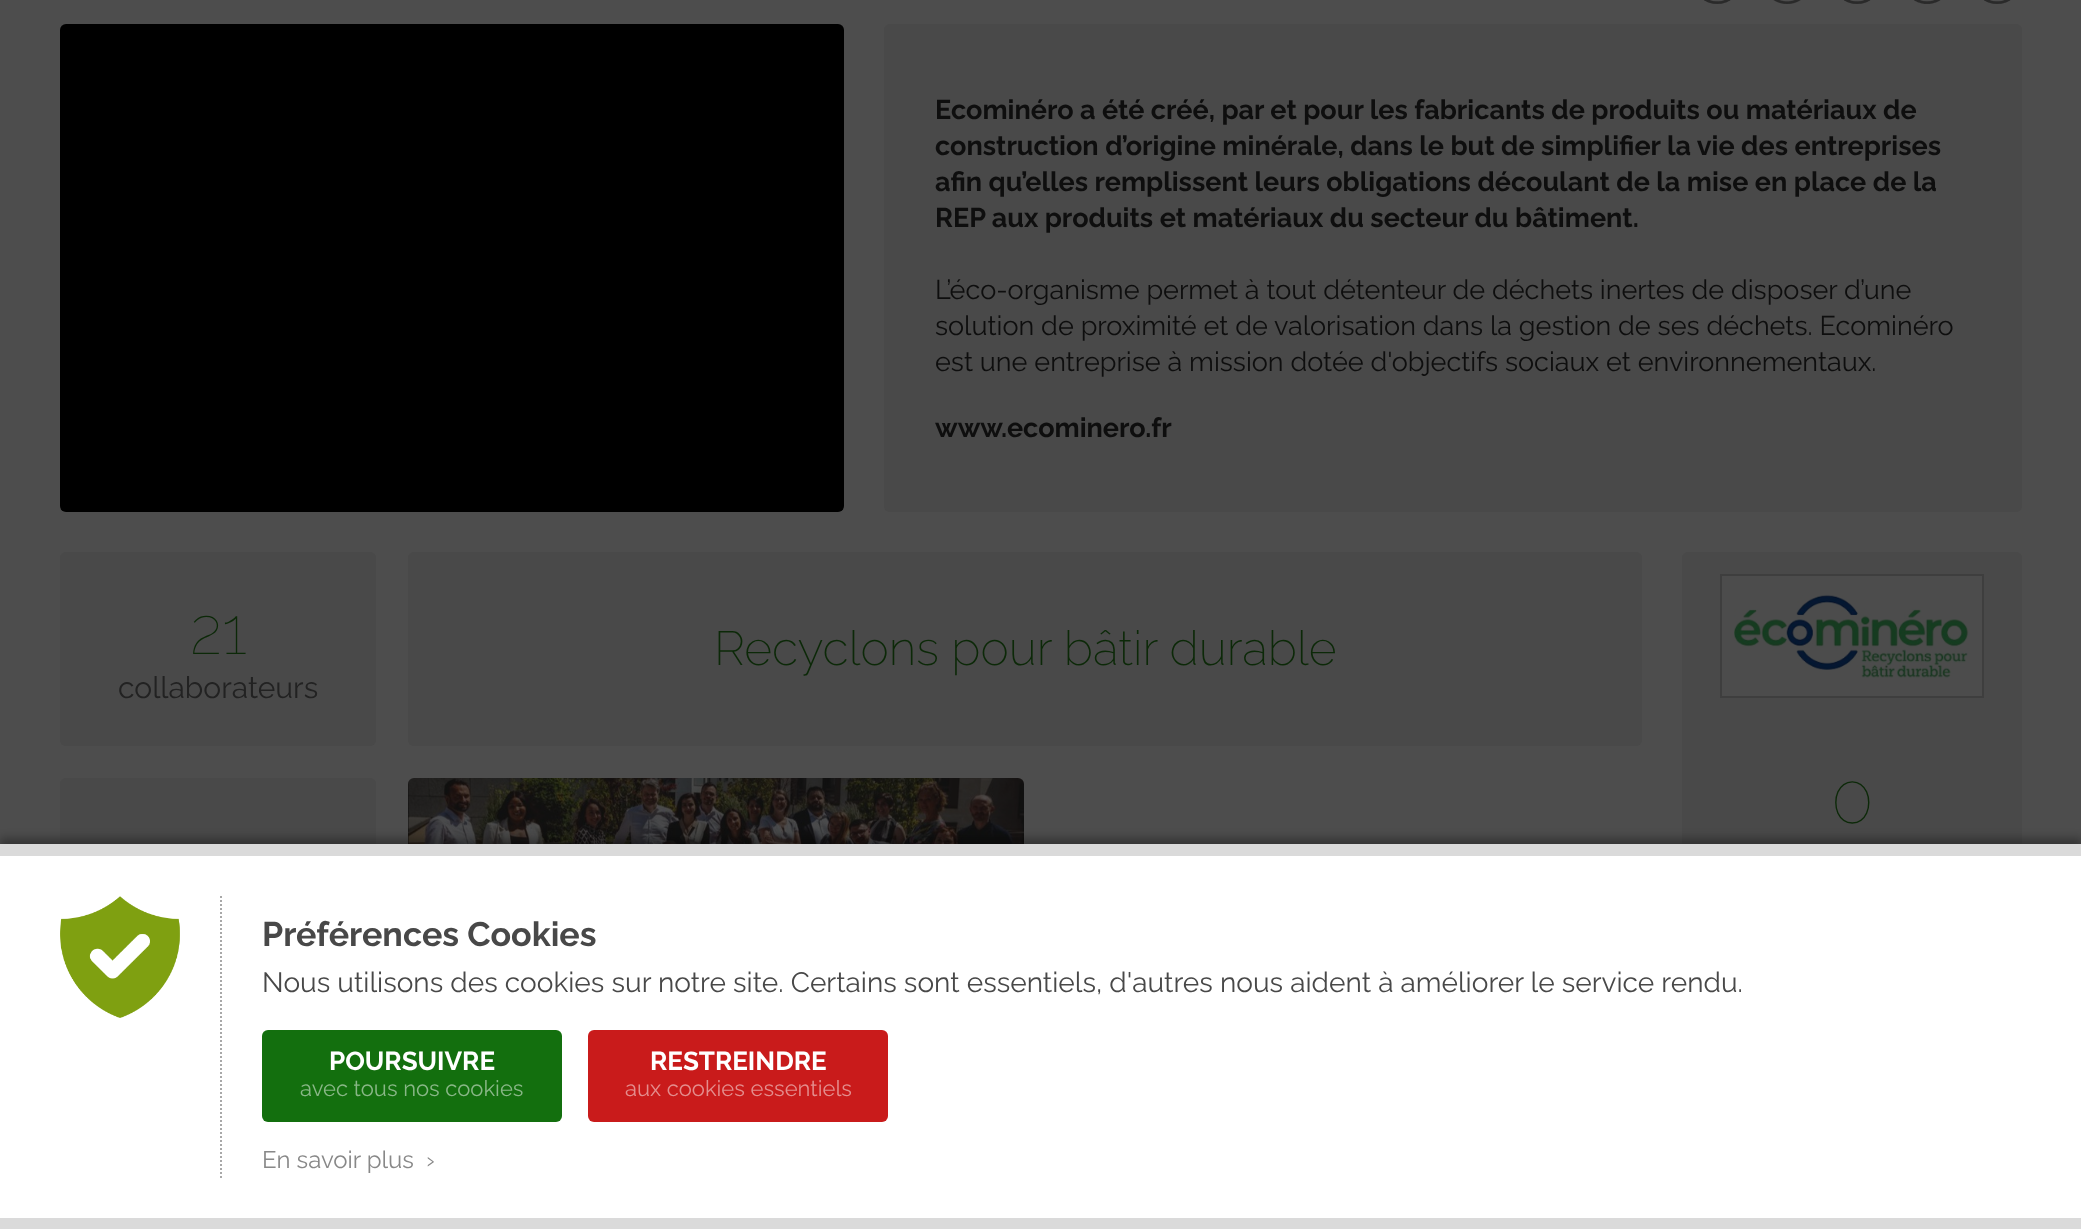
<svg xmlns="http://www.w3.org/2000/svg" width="2081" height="1229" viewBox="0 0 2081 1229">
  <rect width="100%" height="100%" fill="rgb(77,77,77)"/>
  <image x="1704" y="0" width="27" height="4" href="pic1.png"/>
  <image x="1773" y="0" width="28" height="4" href="pic2.png"/>
  <image x="1844" y="0" width="27" height="4" href="pic3.png"/>
  <image x="1914" y="0" width="27" height="4" href="pic4.png"/>
  <image x="1984" y="0" width="27" height="4" href="pic5.png"/>
  <rect x="60" y="24" width="784" height="488" rx="6" fill="rgb(0,0,0)"/>
  <rect x="884" y="24" width="1138" height="488" rx="6" fill="rgb(73,73,73)"/>
  <g font-family="Raleway" font-size="27" font-weight="bold" fill="rgb(14,14,14)">
    <text>
      <tspan x="935" y="119">Ecominéro a été créé, par et pour les fabricants de produits ou matériaux de</tspan>
      <tspan x="935" y="155">construction d’origine minérale, dans le but de simplifier la vie des entreprises</tspan>
      <tspan x="935" y="191">afin qu’elles remplissent leurs obligations découlant de la mise en place de la</tspan>
      <tspan x="935" y="227">REP aux produits et matériaux du secteur du bâtiment.</tspan>
    </text>
  </g>
  <g font-family="Raleway" font-size="27" fill="rgb(14,14,14)">
    <text>
      <tspan x="935" y="299">L’éco-organisme permet à tout détenteur de déchets inertes de disposer d’une</tspan>
      <tspan x="935" y="335">solution de proximité et de valorisation dans la gestion de ses déchets. Ecominéro</tspan>
      <tspan x="935" y="371">est une entreprise à mission dotée d'objectifs sociaux et environnementaux.</tspan>
    </text>
  </g>
  <text x="935" y="437" font-family="Raleway" font-size="27" font-weight="bold" fill="rgb(14,14,14)">www.ecominero.fr</text>
  <rect x="60" y="552" width="316" height="194" rx="6" fill="rgb(73,73,73)"/>
  <text x="190" y="654" font-family="Raleway" font-size="66" font-weight="100" fill="rgb(12,41,8)">21</text>
  <text x="118" y="698" font-family="Raleway" font-size="30" fill="rgb(34,34,34)">collaborateurs</text>
  <rect x="408" y="552" width="1234" height="194" rx="6" fill="rgb(73,73,73)"/>
  <text x="714" y="665" font-family="Raleway" font-size="48" font-weight="200" fill="rgb(12,41,8)">Recyclons pour bâtir durable</text>
  <rect x="60" y="778" width="316" height="194" rx="6" fill="rgb(73,73,73)"/>
  <image x="408" y="778" width="616" height="66" href="pic6.png"/>
  <rect x="1682" y="552" width="340" height="420" rx="6" fill="rgb(73,73,73)"/>
  <rect x="1721" y="575" width="262" height="122" fill="none" stroke="rgb(62,62,62)" stroke-width="2"/>
  <image x="1722" y="576" width="260" height="120" href="pic7.png"/>
  <text x="1831" y="823" font-family="Raleway" font-size="70" font-weight="100" fill="rgb(12,41,8)">0</text>
  <rect x="0" y="838" width="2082" height="386" fill="rgba(0,0,0,0.3)" filter="blur(4px)"/>
  <rect x="0" y="856" width="2081" height="362" fill="rgb(255,255,255)"/>
  <rect x="0" y="844" width="2081" height="12" fill="rgb(218,218,218)"/>
  <rect x="0" y="1218" width="2081" height="11" fill="rgb(218,218,218)"/>
  <image x="60" y="896" width="120" height="122" href="pic8.png"/>
  <path d="M221 896V1178" fill="none" stroke="rgb(168,168,168)" stroke-width="2" stroke-dasharray="2 2"/>
  <text x="262" y="946" font-family="Raleway" font-size="34" font-weight="bold" fill="rgb(72,72,72)">Préférences Cookies</text>
  <text x="262" y="992" font-family="Raleway" font-size="28" fill="rgb(72,72,72)">Nous utilisons des cookies sur notre site. Certains sont essentiels, d'autres nous aident à améliorer le service rendu.</text>
  <rect x="262" y="1030" width="300" height="92" rx="6" fill="rgb(19,111,14)"/>
  <text x="329" y="1070" font-family="Raleway" font-size="26" font-weight="bold" fill="rgb(255,255,255)">POURSUIVRE</text>
  <text x="300" y="1096" font-family="Raleway" font-size="22" fill="rgb(137,183,135)">avec tous nos cookies</text>
  <rect x="588" y="1030" width="300" height="92" rx="6" fill="rgb(201,27,27)"/>
  <text x="650" y="1070" font-family="Raleway" font-size="26" font-weight="bold" fill="rgb(255,255,255)">RESTREINDRE</text>
  <text x="625" y="1096" font-family="Raleway" font-size="22" fill="rgb(228,141,141)">aux cookies essentiels</text>
  <text x="262" y="1168" font-family="Raleway" font-size="24" fill="rgb(136,136,136)" xml:space="preserve">En savoir plus  ›</text>
</svg>
